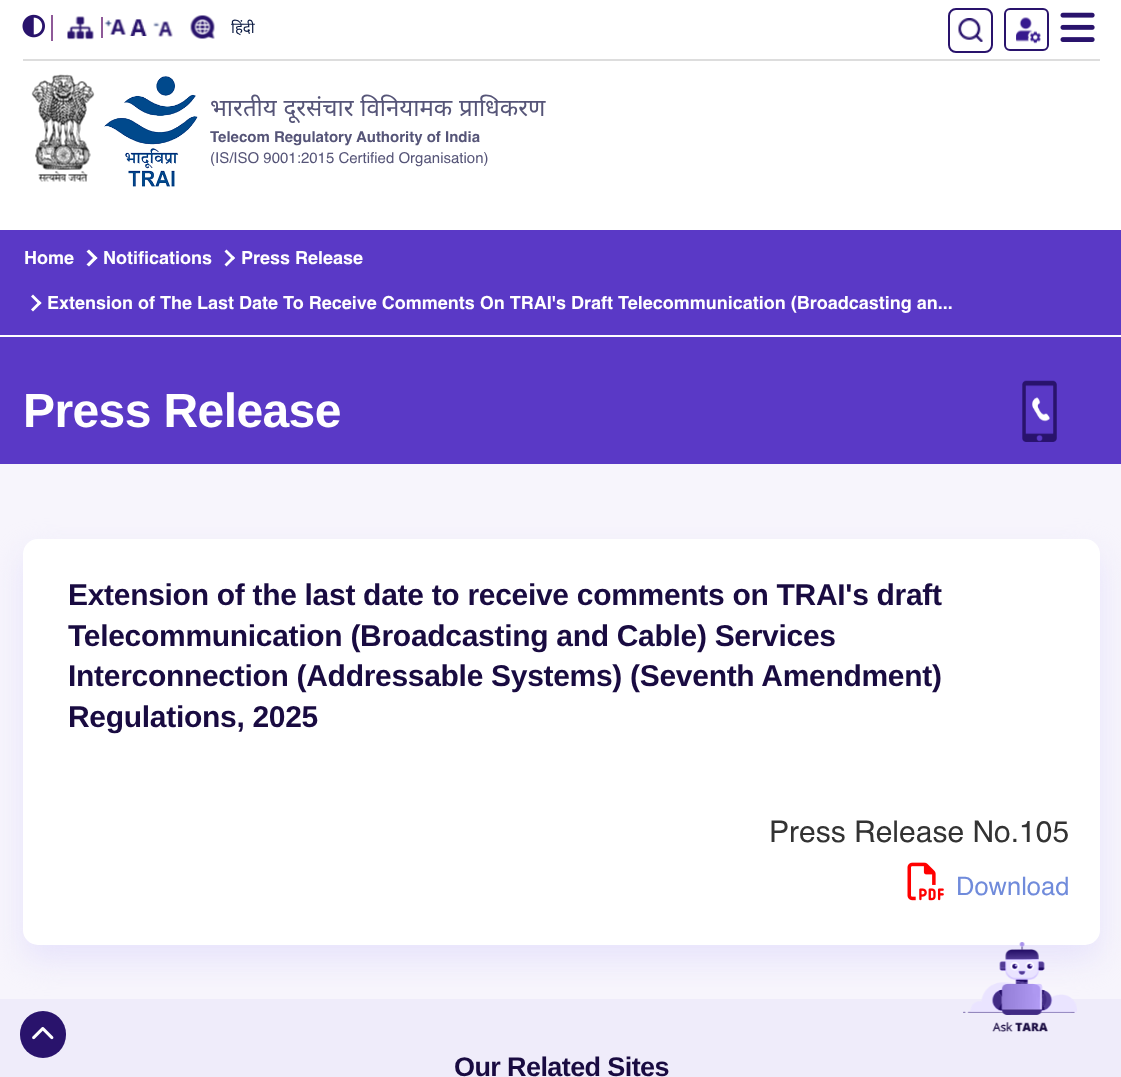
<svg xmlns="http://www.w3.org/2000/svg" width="1121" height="1077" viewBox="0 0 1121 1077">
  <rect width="100%" height="100%" fill="rgb(255,255,255)"/>
  <rect x="23" y="59" width="1077" height="2" fill="rgb(221,221,221)"/>
  <rect x="51" y="15" width="2" height="26" fill="rgb(142,89,152)"/>
  <image x="22" y="14" width="23" height="24" href="pic1.png"/>
  <image x="67" y="16" width="27" height="24" href="pic2.png"/>
  <rect x="101" y="17" width="2" height="21" fill="rgb(142,89,152)"/>
  <image x="104" y="19" width="22" height="16" href="pic3.png"/>
  <image x="129" y="19" width="18" height="17" href="pic4.png"/>
  <image x="153" y="21" width="20" height="16" href="pic5.png"/>
  <image x="190" y="15" width="25" height="24" href="pic6.png"/>
  <text x="231" y="33" font-family="Noto Sans" font-size="15" fill="rgb(10,25,65)">हिंदी</text>
  <rect x="949" y="9" width="43" height="43" rx="7" fill="none" stroke="rgb(41,19,108)" stroke-width="2"/>
  <image x="958" y="18" width="25" height="24" href="pic7.png"/>
  <rect x="1005" y="9" width="43" height="41" rx="5" fill="none" stroke="rgb(41,19,108)" stroke-width="2"/>
  <image x="1016" y="17" width="25" height="27" href="pic8.png"/>
  <image x="1060" y="12" width="35" height="30" href="pic9.png"/>
  <image x="31" y="74" width="64" height="108" href="pic10.png"/>
  <image x="104" y="76" width="94" height="111" href="pic11.png"/>
  <text x="210" y="116" word-spacing="0.5" font-family="Noto Sans" font-size="24" fill="rgb(86,85,120)">भारतीय दूरसंचार विनियामक प्राधिकरण</text>
  <text x="210" y="142" font-family="Helvetica" font-size="15" font-weight="bold" fill="rgb(86,85,120)">Telecom Regulatory Authority of India</text>
  <text x="210" y="163" font-family="Helvetica" font-size="15" fill="rgb(86,85,120)">(IS/ISO 9001:2015 Certified Organisation)</text>
  <rect x="0" y="230" width="1121" height="234" fill="rgb(90,57,198)"/>
  <rect x="0" y="335" width="1121" height="2" fill="rgb(255,255,255)"/>
  <text x="24" y="264" font-family="Helvetica" font-size="18" font-weight="bold" fill="rgb(255,255,255)">Home</text>
  <path d="M89 249.5L97.5 258L95 260L86.5 251.5Z" fill="rgb(255,255,255)"/>
  <path d="M95 256L97.5 258L89 266.5L86.5 264.5Z" fill="rgb(255,255,255)"/>
  <text x="103" y="264" font-family="Helvetica" font-size="18" font-weight="bold" fill="rgb(255,255,255)">Notifications</text>
  <path d="M226.5 249.5L235 258L233 260L224.5 251.5Z" fill="rgb(255,255,255)"/>
  <path d="M233 256L235 258L226.5 266.5L224.5 264.5Z" fill="rgb(255,255,255)"/>
  <text x="241" y="264" font-family="Helvetica" font-size="18" font-weight="bold" fill="rgb(255,255,255)">Press Release</text>
  <path d="M33 294.5L41.5 303L39.5 305L31 296.5Z" fill="rgb(255,255,255)"/>
  <path d="M39.5 301L41.5 303L33 311.5L31 309.5Z" fill="rgb(255,255,255)"/>
  <text x="47" y="309" font-family="Helvetica" font-size="18" font-weight="bold" fill="rgb(255,255,255)">Extension of The Last Date To Receive Comments On TRAI's Draft Telecommunication (Broadcasting an...</text>
  <text x="23" y="427" font-family="Liberation Sans" font-size="48" font-weight="bold" letter-spacing="-0.6" fill="rgb(255,255,255)">Press Release</text>
  <image x="1022" y="380" width="35" height="62" href="pic12.png"/>
  <rect x="0" y="464" width="1121" height="535" fill="rgb(247,245,252)"/>
  <rect x="0" y="999" width="1121" height="78" fill="rgb(239,236,250)"/>
  <rect x="23" y="554" width="1077" height="406" rx="15" fill="rgb(231,227,251)" filter="blur(15px)"/>
  <rect x="23" y="539" width="1077" height="406" rx="15" fill="rgb(255,255,255)"/>
  <g font-family="Liberation Sans" font-size="30" font-weight="bold" letter-spacing="-0.3" fill="rgb(25,11,65)">
    <text>
      <tspan x="68" y="605">Extension of the last date to receive comments on TRAI's draft</tspan>
      <tspan x="68" y="646">Telecommunication (Broadcasting and Cable) Services</tspan>
      <tspan x="68" y="686">Interconnection (Addressable Systems) (Seventh Amendment)</tspan>
      <tspan x="68" y="727">Regulations, 2025</tspan>
    </text>
  </g>
  <text x="769" y="842" font-family="Helvetica" font-size="30" fill="rgb(51,51,51)">Press Release No.105</text>
  <image x="907" y="862" width="37" height="39" href="pic13.png"/>
  <text x="956" y="895" font-family="Helvetica" font-size="25.5" fill="rgb(112,139,219)">Download</text>
  <rect x="20" y="1011" width="46" height="47" rx="23" fill="rgb(41,19,108)"/>
  <image x="32" y="1027" width="22" height="13" href="pic14.png"/>
  <text x="454" y="1076" font-family="Liberation Sans" font-size="27" font-weight="bold" letter-spacing="-0.6" fill="rgb(25,11,65)">Our Related Sites</text>
  <image x="963" y="942" width="114" height="90" href="pic15.png"/>
</svg>
